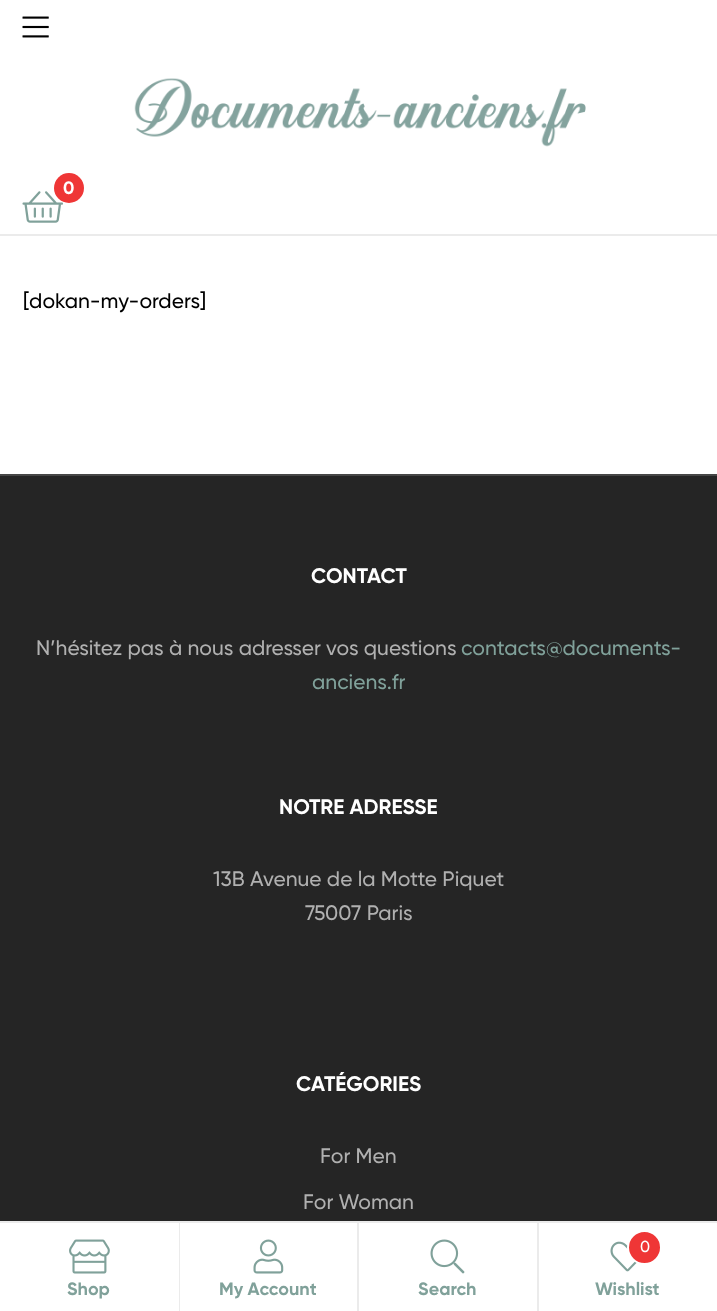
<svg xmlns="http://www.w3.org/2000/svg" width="717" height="1311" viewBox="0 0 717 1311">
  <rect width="100%" height="100%" fill="rgb(255,255,255)"/>
  <rect x="0" y="234" width="717" height="2" fill="rgb(235,235,235)"/>
  <image x="22" y="16" width="27" height="22" href="pic1.png"/>
  <image x="134" y="78" width="452" height="69" href="pic2.png"/>
  <image x="22" y="191" width="41" height="32" href="pic3.png"/>
  <circle cx="69" cy="188" r="15" fill="rgb(239,54,54)"/>
  <text x="63" y="194" font-family="Gilroy" font-size="18" font-weight="bold" fill="rgb(255,255,255)">0</text>
  <text x="23" y="308" font-family="Gilroy" font-size="21" font-weight="500" fill="rgb(0,0,0)">[dokan-my-orders]</text>
  <rect x="0" y="476" width="717" height="745" fill="rgb(37,37,37)"/>
  <rect x="0" y="474" width="717" height="2" fill="rgb(70,70,70)"/>
  <text x="311" y="583" font-family="Gilroy" font-size="21" font-weight="bold" fill="rgb(255,255,255)">CONTACT</text>
  <text x="36" y="655" font-family="Gilroy" font-size="21" font-weight="500" fill="rgb(176,176,176)">N’hésitez pas à nous adresser vos questions</text>
  <g font-family="Gilroy" font-size="21" font-weight="500" fill="rgb(128,161,154)">
    <text x="461" y="655">contacts@documents-</text>
    <text x="312" y="689">anciens.fr</text>
  </g>
  <text x="279" y="814" font-family="Gilroy" font-size="21" font-weight="bold" fill="rgb(255,255,255)">NOTRE ADRESSE</text>
  <g font-family="Gilroy" font-size="21" font-weight="500" fill="rgb(176,176,176)">
    <text x="213" y="886">13B Avenue de la Motte Piquet</text>
    <text x="305" y="920">75007 Paris</text>
  </g>
  <text x="296" y="1091" font-family="Gilroy" font-size="21" font-weight="bold" fill="rgb(255,255,255)">CATÉGORIES</text>
  <g font-family="Gilroy" font-size="21" font-weight="500" fill="rgb(176,176,176)">
    <text x="320" y="1163">For Men</text>
    <text x="303" y="1209">For Woman</text>
  </g>
  <rect x="0" y="1221" width="717" height="2" fill="rgb(235,235,235)"/>
  <rect x="179" y="1223" width="1" height="88" fill="rgb(235,235,235)"/>
  <image x="69" y="1239" width="41" height="35" href="pic4.png"/>
  <text x="67" y="1295" font-family="Gilroy" font-size="18" font-weight="bold" fill="rgb(128,161,154)">Shop</text>
  <rect x="357" y="1223" width="2" height="88" fill="rgb(235,235,235)"/>
  <image x="253" y="1239" width="31" height="35" href="pic5.png"/>
  <text x="219" y="1295" font-family="Gilroy" font-size="18" font-weight="bold" fill="rgb(128,161,154)">My Account</text>
  <rect x="537" y="1223" width="2" height="88" fill="rgb(235,235,235)"/>
  <image x="430" y="1239" width="35" height="35" href="pic6.png"/>
  <text x="418" y="1295" font-family="Gilroy" font-size="18" font-weight="bold" fill="rgb(128,161,154)">Search</text>
  <image x="610" y="1241" width="27" height="31" href="pic7.png"/>
  <circle cx="644.5" cy="1247.5" r="16.5" fill="rgb(239,54,54)" stroke="rgb(255,255,255)" stroke-width="2"/>
  <text x="640" y="1252" font-family="Gilroy" font-size="16" font-weight="500" fill="rgb(255,255,255)">0</text>
  <text x="595" y="1295" font-family="Gilroy" font-size="18" font-weight="bold" fill="rgb(128,161,154)">Wishlist</text>
</svg>
